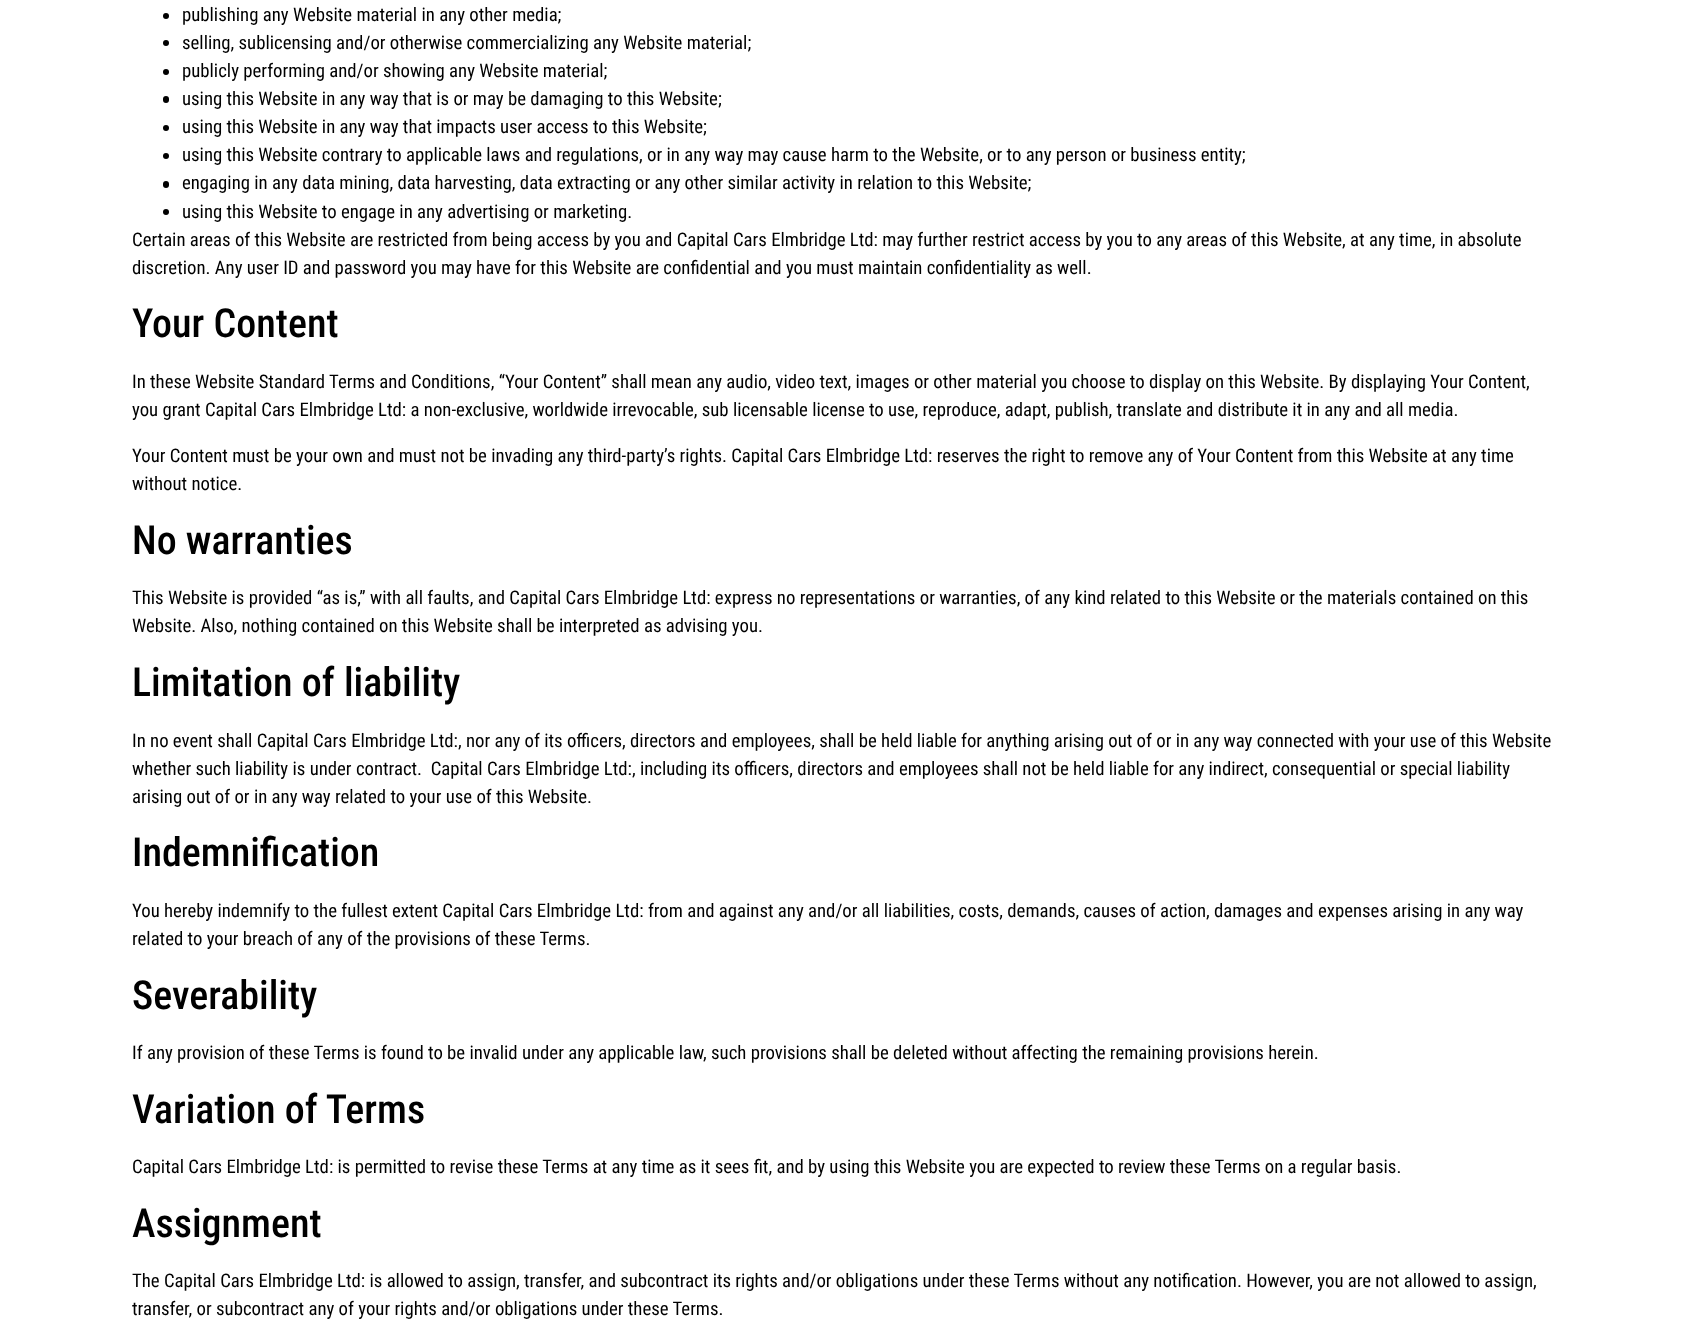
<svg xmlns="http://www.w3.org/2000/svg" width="1688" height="1331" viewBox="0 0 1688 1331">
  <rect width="100%" height="100%" fill="rgb(255,255,255)"/>
  <circle cx="166" cy="16" r="3" fill="rgb(0,0,0)"/>
  <text x="182" y="21" font-family="Roboto Condensed" font-size="18.75" fill="rgb(0,0,0)">publishing any Website material in any other media;</text>
  <circle cx="166" cy="43" r="3" fill="rgb(0,0,0)"/>
  <text x="182" y="49" font-family="Roboto Condensed" font-size="18.75" fill="rgb(0,0,0)">selling, sublicensing and/or otherwise commercializing any Website material;</text>
  <circle cx="166" cy="72" r="3" fill="rgb(0,0,0)"/>
  <text x="182" y="77" font-family="Roboto Condensed" font-size="18.75" fill="rgb(0,0,0)">publicly performing and/or showing any Website material;</text>
  <rect x="163" y="96" width="6" height="7" rx="3" fill="rgb(0,0,0)"/>
  <text x="182" y="105" font-family="Roboto Condensed" font-size="18.75" fill="rgb(0,0,0)">using this Website in any way that is or may be damaging to this Website;</text>
  <circle cx="166" cy="128" r="3" fill="rgb(0,0,0)"/>
  <text x="182" y="133" font-family="Roboto Condensed" font-size="18.75" fill="rgb(0,0,0)">using this Website in any way that impacts user access to this Website;</text>
  <circle cx="166" cy="156" r="3" fill="rgb(0,0,0)"/>
  <text x="182" y="161" font-family="Roboto Condensed" font-size="18.75" fill="rgb(0,0,0)">using this Website contrary to applicable laws and regulations, or in any way may cause harm to the Website, or to any person or business entity;</text>
  <rect x="163" y="181" width="6" height="7" rx="3" fill="rgb(0,0,0)"/>
  <text x="182" y="189" font-family="Roboto Condensed" font-size="18.75" fill="rgb(0,0,0)">engaging in any data mining, data harvesting, data extracting or any other similar activity in relation to this Website;</text>
  <circle cx="166" cy="212" r="3" fill="rgb(0,0,0)"/>
  <g font-family="Roboto Condensed" font-size="18.75" fill="rgb(0,0,0)">
    <text x="182" y="218">using this Website to engage in any advertising or marketing.</text>
    <text>
      <tspan x="132" y="246">Certain areas of this Website are restricted from being access by you and Capital Cars Elmbridge Ltd: may further restrict access by you to any areas of this Website, at any time, in absolute</tspan>
      <tspan x="132" y="274">discretion. Any user ID and password you may have for this Website are confidential and you must maintain confidentiality as well.</tspan>
    </text>
  </g>
  <text x="132" y="337" font-family="Roboto Condensed" font-size="40" font-weight="500" fill="rgb(0,0,0)">Your Content</text>
  <g font-family="Roboto Condensed" font-size="18.75" fill="rgb(0,0,0)">
    <text>
      <tspan x="132" y="388">In these Website Standard Terms and Conditions, “Your Content” shall mean any audio, video text, images or other material you choose to display on this Website. By displaying Your Content,</tspan>
      <tspan x="132" y="416">you grant Capital Cars Elmbridge Ltd: a non-exclusive, worldwide irrevocable, sub licensable license to use, reproduce, adapt, publish, translate and distribute it in any and all media.</tspan>
    </text>
    <text>
      <tspan x="132" y="462">Your Content must be your own and must not be invading any third-party’s rights. Capital Cars Elmbridge Ltd: reserves the right to remove any of Your Content from this Website at any time</tspan>
      <tspan x="132" y="490">without notice.</tspan>
    </text>
  </g>
  <text x="132" y="554" font-family="Roboto Condensed" font-size="40" font-weight="500" fill="rgb(0,0,0)">No warranties</text>
  <g font-family="Roboto Condensed" font-size="18.75" fill="rgb(0,0,0)">
    <text>
      <tspan x="132" y="604">This Website is provided “as is,” with all faults, and Capital Cars Elmbridge Ltd: express no representations or warranties, of any kind related to this Website or the materials contained on this</tspan>
      <tspan x="132" y="632">Website. Also, nothing contained on this Website shall be interpreted as advising you.</tspan>
    </text>
  </g>
  <text x="132" y="696" font-family="Roboto Condensed" font-size="40" font-weight="500" fill="rgb(0,0,0)">Limitation of liability</text>
  <g font-family="Roboto Condensed" font-size="18.75" fill="rgb(0,0,0)">
    <text xml:space="preserve"><tspan x="132" y="747">In no event shall Capital Cars Elmbridge Ltd:, nor any of its officers, directors and employees, shall be held liable for anything arising out of or in any way connected with your use of this Website</tspan><tspan x="132" y="775">whether such liability is under contract.  Capital Cars Elmbridge Ltd:, including its officers, directors and employees shall not be held liable for any indirect, consequential or special liability</tspan><tspan x="132" y="803">arising out of or in any way related to your use of this Website.</tspan></text>
  </g>
  <text x="132" y="866" font-family="Roboto Condensed" font-size="40" font-weight="500" fill="rgb(0,0,0)">Indemnification</text>
  <g font-family="Roboto Condensed" font-size="18.75" fill="rgb(0,0,0)">
    <text>
      <tspan x="132" y="917">You hereby indemnify to the fullest extent Capital Cars Elmbridge Ltd: from and against any and/or all liabilities, costs, demands, causes of action, damages and expenses arising in any way</tspan>
      <tspan x="132" y="945">related to your breach of any of the provisions of these Terms.</tspan>
    </text>
  </g>
  <text x="132" y="1009" font-family="Roboto Condensed" font-size="40" font-weight="500" fill="rgb(0,0,0)">Severability</text>
  <text x="132" y="1059" font-family="Roboto Condensed" font-size="18.75" fill="rgb(0,0,0)">If any provision of these Terms is found to be invalid under any applicable law, such provisions shall be deleted without affecting the remaining provisions herein.</text>
  <text x="132" y="1123" font-family="Roboto Condensed" font-size="40" font-weight="500" fill="rgb(0,0,0)">Variation of Terms</text>
  <text x="132" y="1173" font-family="Roboto Condensed" font-size="18.75" fill="rgb(0,0,0)">Capital Cars Elmbridge Ltd: is permitted to revise these Terms at any time as it sees fit, and by using this Website you are expected to review these Terms on a regular basis.</text>
  <text x="132" y="1237" font-family="Roboto Condensed" font-size="40" font-weight="500" fill="rgb(0,0,0)">Assignment</text>
  <g font-family="Roboto Condensed" font-size="18.75" fill="rgb(0,0,0)">
    <text>
      <tspan x="132" y="1287">The Capital Cars Elmbridge Ltd: is allowed to assign, transfer, and subcontract its rights and/or obligations under these Terms without any notification. However, you are not allowed to assign,</tspan>
      <tspan x="132" y="1315">transfer, or subcontract any of your rights and/or obligations under these Terms.</tspan>
    </text>
  </g>
</svg>
